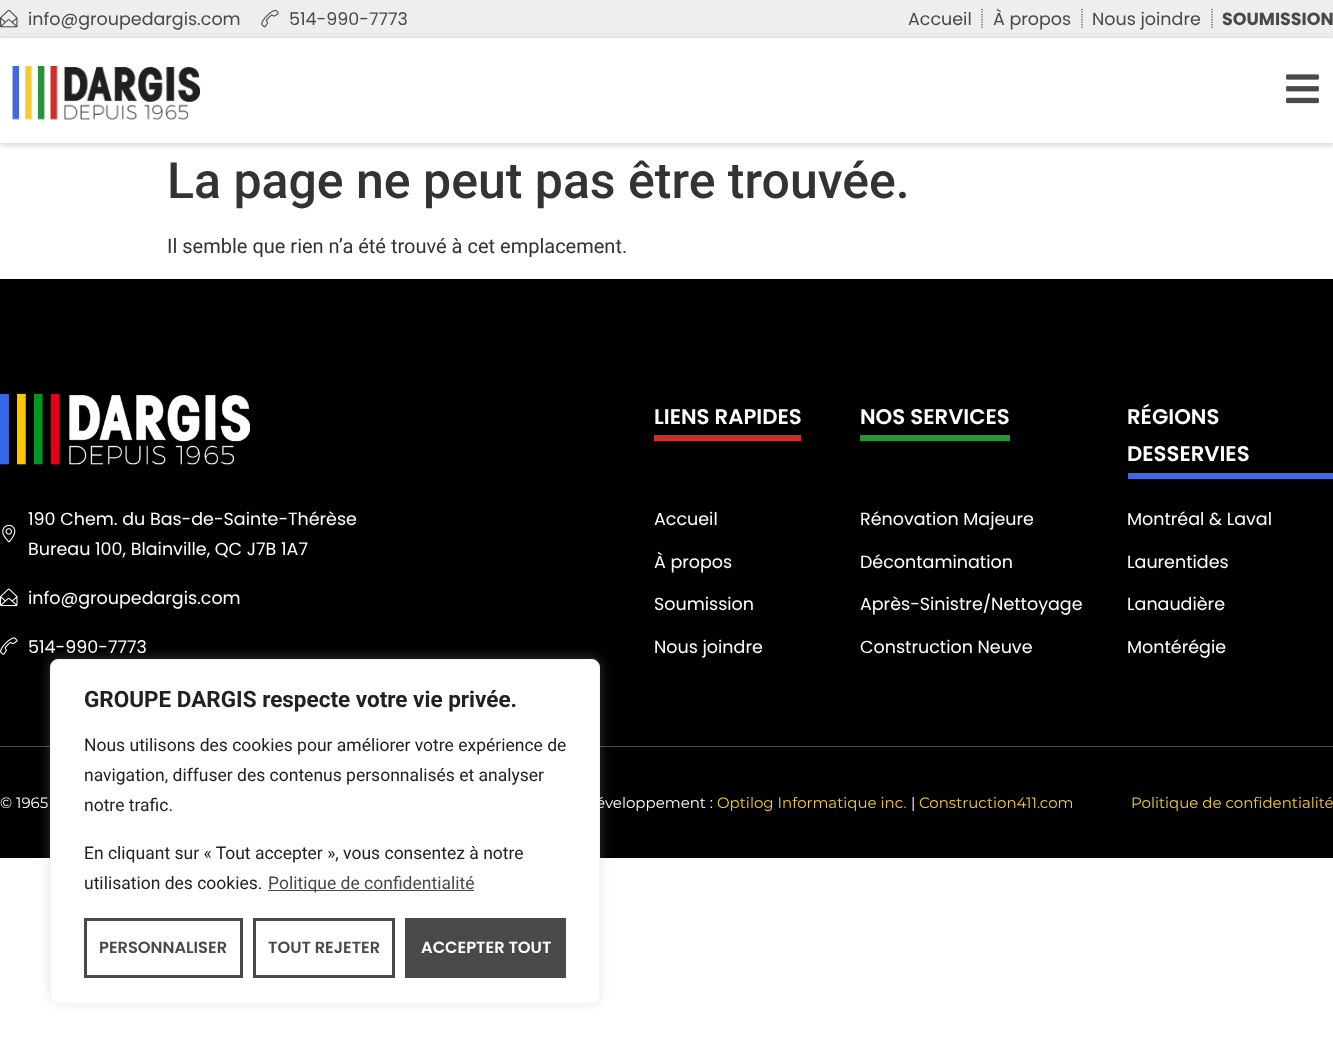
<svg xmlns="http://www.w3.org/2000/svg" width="1333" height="1053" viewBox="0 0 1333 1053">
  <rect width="100%" height="100%" fill="rgb(255,255,255)"/>
  <rect x="0" y="0" width="1333" height="38" fill="rgb(238,238,238)"/>
  <image x="0" y="9" width="18" height="19" href="pic1.png"/>
  <text x="28" y="25" font-family="Poppins" font-size="17.5" fill="rgb(73,73,73)">info@groupedargis.com</text>
  <image x="261" y="9" width="18" height="19" href="pic2.png"/>
  <g font-family="Poppins" font-size="17.5" fill="rgb(73,73,73)">
    <text x="289" y="25">514-990-7773</text>
    <text x="908" y="25">Accueil</text>
  </g>
  <path d="M982 9V29" fill="none" stroke="rgb(73,73,73)" stroke-width="1.2" stroke-dasharray="1.25 1.25"/>
  <text x="993" y="25" font-family="Poppins" font-size="17.5" fill="rgb(73,73,73)">À propos</text>
  <path d="M1082 9V29" fill="none" stroke="rgb(73,73,73)" stroke-width="1.2" stroke-dasharray="1.25 1.25"/>
  <text x="1092" y="25" font-family="Poppins" font-size="17.5" fill="rgb(73,73,73)">Nous joindre</text>
  <path d="M1212 9V29" fill="none" stroke="rgb(73,73,73)" stroke-width="1.2" stroke-dasharray="1.25 1.25"/>
  <text x="1222" y="25" font-family="Poppins" font-size="17.5" font-weight="bold" fill="rgb(73,73,73)">SOUMISSION</text>
  <rect x="0" y="40" width="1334" height="105" fill="rgba(0,0,0,0.19)" filter="blur(3px)"/>
  <rect x="0" y="38" width="1333" height="105" fill="rgb(255,255,255)"/>
  <image x="12" y="66" width="188" height="54" href="pic3.png"/>
  <image x="1286" y="74" width="33" height="30" href="pic4.png"/>
  <text x="167" y="198" font-family="Roboto" font-size="50" font-weight="500" fill="rgb(51,51,51)">La page ne peut pas être trouvée.</text>
  <text x="167" y="253" font-family="Roboto" font-size="20" fill="rgb(51,51,51)">Il semble que rien n’a été trouvé à cet emplacement.</text>
  <rect x="0" y="279" width="1333" height="579" fill="rgb(0,0,0)"/>
  <image x="0" y="393" width="250" height="72" href="pic5.png"/>
  <image x="2" y="524" width="14" height="19" href="pic6.png"/>
  <g font-family="Poppins" font-size="17.5" fill="rgb(255,255,255)">
    <text>
      <tspan x="28" y="525">190 Chem. du Bas-de-Sainte-Thérèse</tspan>
      <tspan x="28" y="555">Bureau 100, Blainville, QC J7B 1A7</tspan>
    </text>
  </g>
  <image x="0" y="588" width="18" height="19" href="pic7.png"/>
  <text x="28" y="604" font-family="Poppins" font-size="17.5" fill="rgb(255,255,255)">info@groupedargis.com</text>
  <image x="0" y="637" width="18" height="18" href="pic8.png"/>
  <text x="28" y="653" font-family="Poppins" font-size="17.5" fill="rgb(255,255,255)">514-990-7773</text>
  <rect x="654" y="435" width="147" height="6" fill="rgb(209,45,43)"/>
  <text x="654" y="424" font-family="Poppins" font-size="21.25" font-weight="600" fill="rgb(255,255,255)">LIENS RAPIDES</text>
  <g font-family="Poppins" font-size="17.5" fill="rgb(255,255,255)">
    <text x="654" y="525">Accueil</text>
    <text x="654" y="568">À propos</text>
    <text x="654" y="610">Soumission</text>
    <text x="654" y="653">Nous joindre</text>
  </g>
  <rect x="860" y="435" width="150" height="6" fill="rgb(37,149,56)"/>
  <text x="860" y="424" font-family="Poppins" font-size="21.25" font-weight="600" fill="rgb(255,255,255)">NOS SERVICES</text>
  <g font-family="Poppins" font-size="17.5" fill="rgb(255,255,255)">
    <text x="860" y="525">Rénovation Majeure</text>
    <text x="860" y="568">Décontamination</text>
    <text x="860" y="610">Après-Sinistre/Nettoyage</text>
    <text x="860" y="653">Construction Neuve</text>
  </g>
  <rect x="1128" y="473" width="205" height="6" fill="rgb(65,105,225)"/>
  <g font-family="Poppins" font-size="21.25" font-weight="600" fill="rgb(255,255,255)">
    <text>
      <tspan x="1127" y="424">RÉGIONS</tspan>
      <tspan x="1127" y="461">DESSERVIES</tspan>
    </text>
  </g>
  <g font-family="Poppins" font-size="17.5" fill="rgb(255,255,255)">
    <text x="1127" y="525">Montréal &amp; Laval</text>
    <text x="1127" y="568">Laurentides</text>
    <text x="1127" y="610">Lanaudière</text>
    <text x="1127" y="653">Montérégie</text>
  </g>
  <rect x="0" y="746" width="1333" height="1" fill="rgb(73,73,73)"/>
  <g font-family="Montserrat" font-size="15" fill="rgb(255,255,255)">
    <text x="0" y="808">© 1965</text>
    <text x="596" y="808">éveloppement :</text>
  </g>
  <text x="717" y="808" font-family="Montserrat" font-size="15" fill="rgb(243,202,54)">Optilog Informatique inc.</text>
  <text x="911" y="808" font-family="Montserrat" font-size="15" fill="rgb(255,255,255)">|</text>
  <g font-family="Montserrat" font-size="15" fill="rgb(243,202,54)">
    <text x="919" y="808">Construction411.com</text>
    <text x="1131" y="808">Politique de confidentialité</text>
  </g>
  <rect x="50" y="658" width="550" height="345" rx="8" fill="rgba(172,171,171,0.3)" filter="blur(6px)"/>
  <rect x="50.5" y="659.5" width="549" height="344" rx="7.5" fill="rgb(255,255,255)" stroke="rgb(244,244,244)"/>
  <text x="84" y="707" font-family="Roboto" font-size="22.5" font-weight="bold" fill="rgb(33,33,33)">GROUPE DARGIS respecte votre vie privée.</text>
  <g font-family="Roboto" font-size="17.5" fill="rgb(33,33,33)">
    <text>
      <tspan x="84" y="751">Nous utilisons des cookies pour améliorer votre expérience de</tspan>
      <tspan x="84" y="781">navigation, diffuser des contenus personnalisés et analyser</tspan>
      <tspan x="84" y="811">notre trafic.</tspan>
    </text>
    <text>
      <tspan x="84" y="859">En cliquant sur « Tout accepter », vous consentez à notre</tspan>
      <tspan x="84" y="889">utilisation des cookies.</tspan>
    </text>
  </g>
  <rect x="268" y="890" width="206" height="1" fill="rgb(73,73,73)"/>
  <text x="268" y="889" font-family="Roboto" font-size="17.5" fill="rgb(73,73,73)">Politique de confidentialité</text>
  <rect x="85.5" y="919.5" width="156" height="57" fill="none" stroke="rgb(73,73,73)" stroke-width="3"/>
  <text x="99" y="953" font-family="Poppins" font-size="16.25" font-weight="600" fill="rgb(73,73,73)">PERSONNALISER</text>
  <rect x="254.5" y="919.5" width="139" height="57" fill="none" stroke="rgb(73,73,73)" stroke-width="3"/>
  <text x="268" y="953" font-family="Poppins" font-size="16.25" font-weight="600" fill="rgb(73,73,73)">TOUT REJETER</text>
  <rect x="405" y="918" width="161" height="60" fill="rgb(73,73,73)"/>
  <text x="421" y="953" font-family="Poppins" font-size="16.25" font-weight="600" fill="rgb(255,255,255)">ACCEPTER TOUT</text>
</svg>
